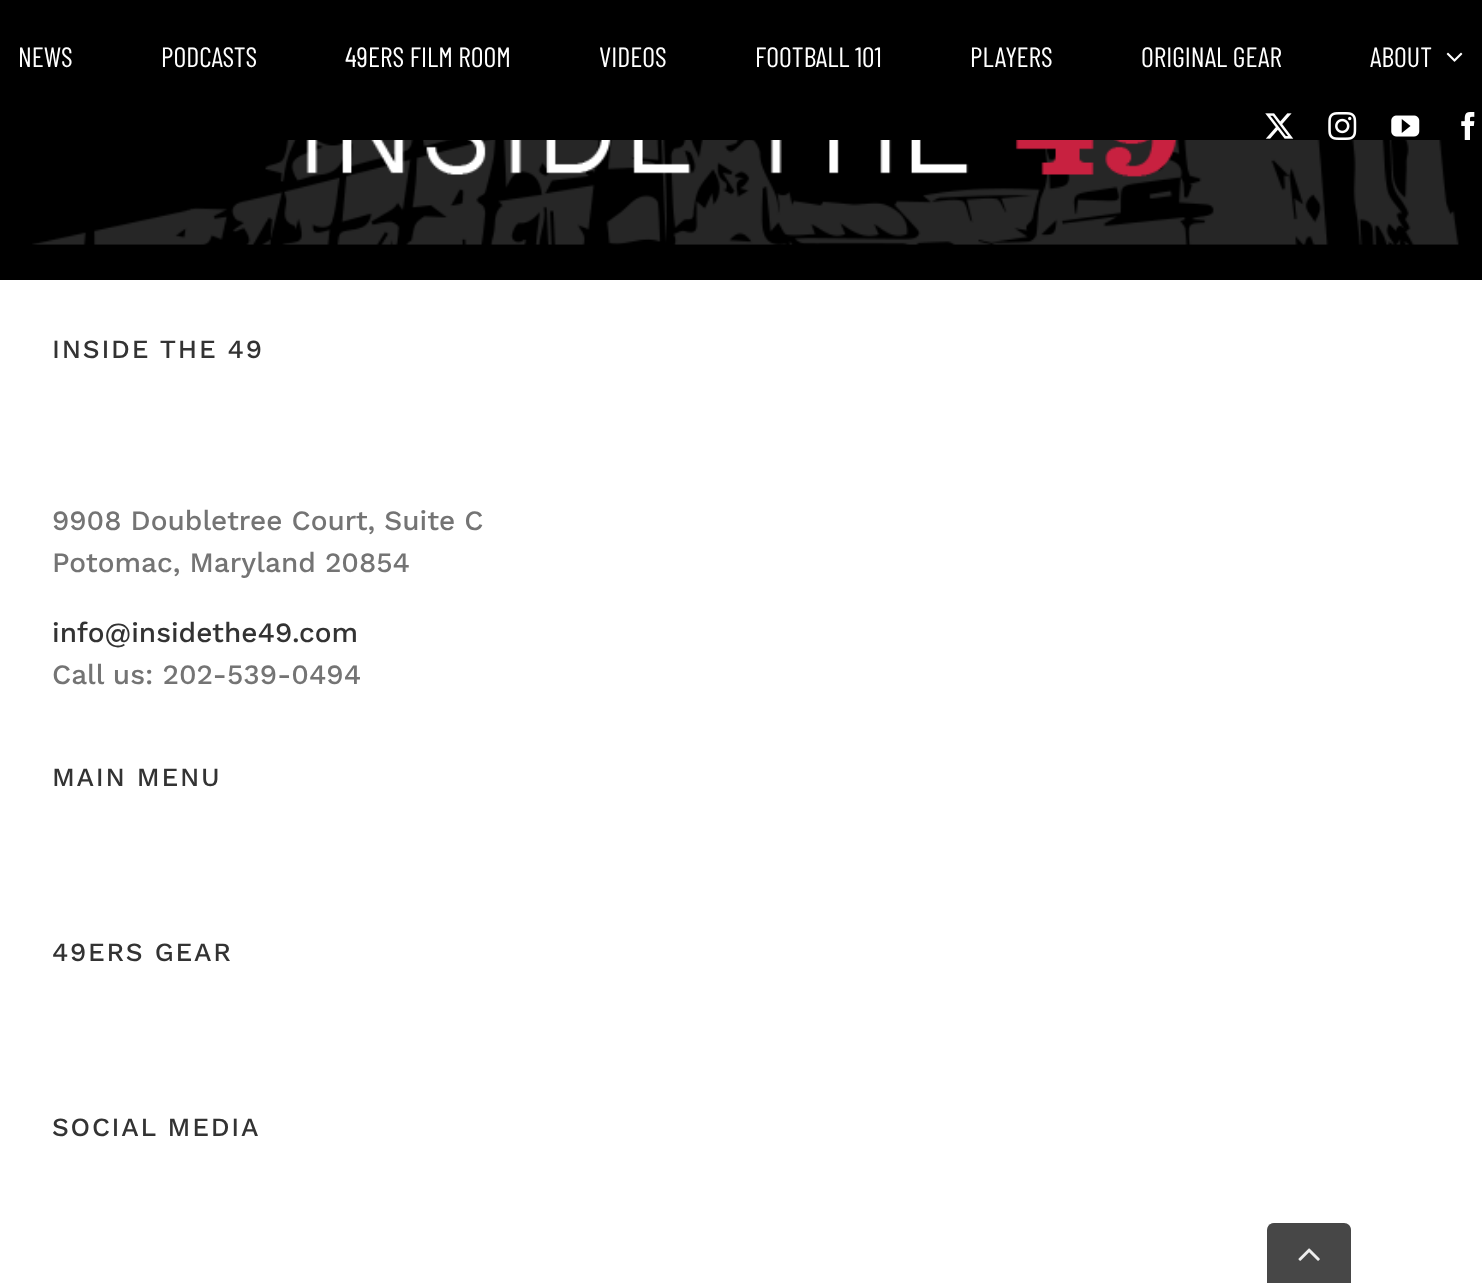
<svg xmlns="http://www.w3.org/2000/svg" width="1482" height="1283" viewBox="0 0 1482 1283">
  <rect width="100%" height="100%" fill="rgb(255,255,255)"/>
  <rect x="0" y="0" width="1482" height="280" fill="rgb(0,0,0)"/>
  <g font-family="Barlow Condensed" font-size="28" fill="rgb(255,255,255)">
    <text x="18" y="67">NEWS</text>
    <text x="161" y="67">PODCASTS</text>
    <text x="345" y="67">49ERS FILM ROOM</text>
    <text x="599" y="67">VIDEOS</text>
    <text x="755" y="67">FOOTBALL 101</text>
    <text x="970" y="67">PLAYERS</text>
    <text x="1141" y="67">ORIGINAL GEAR</text>
    <text x="1370" y="67">ABOUT</text>
  </g>
  <image x="1446" y="52" width="17" height="10" href="pic1.png"/>
  <image x="1265" y="113" width="29" height="26" href="pic2.png"/>
  <image x="1328" y="112" width="29" height="28" href="pic3.png"/>
  <image x="1391" y="115" width="29" height="22" href="pic4.png"/>
  <image x="1461" y="112" width="14" height="28" href="pic5.png"/>
  <image x="32" y="140" width="1427" height="105" href="pic6.png"/>
  <text x="52" y="358" font-family="Work Sans" font-size="26.25" font-weight="500" letter-spacing="1.75" fill="rgb(51,51,51)">INSIDE THE 49</text>
  <g font-family="Work Sans" font-size="28" font-weight="500" fill="rgb(116,116,116)">
    <text>
      <tspan x="52" y="530">9908 Doubletree Court, Suite C</tspan>
      <tspan x="52" y="572">Potomac, Maryland 20854</tspan>
    </text>
  </g>
  <text x="52" y="642" font-family="Work Sans" font-size="28" font-weight="500" fill="rgb(51,51,51)">info@insidethe49.com</text>
  <text x="52" y="684" font-family="Work Sans" font-size="28" font-weight="500" fill="rgb(116,116,116)">Call us: 202-539-0494</text>
  <g font-family="Work Sans" font-size="26.25" font-weight="500" letter-spacing="1.75" fill="rgb(51,51,51)">
    <text x="52" y="786">MAIN MENU</text>
    <text x="52" y="961">49ERS GEAR</text>
    <text x="52" y="1136">SOCIAL MEDIA</text>
  </g>
  <path d="M1274 1223H1344C1348 1223 1351 1226 1351 1230V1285H1267V1230C1267 1226 1270 1223 1274 1223Z" fill="rgb(71,71,71)"/>
  <image x="1298" y="1248" width="22" height="13" href="pic7.png"/>
</svg>
